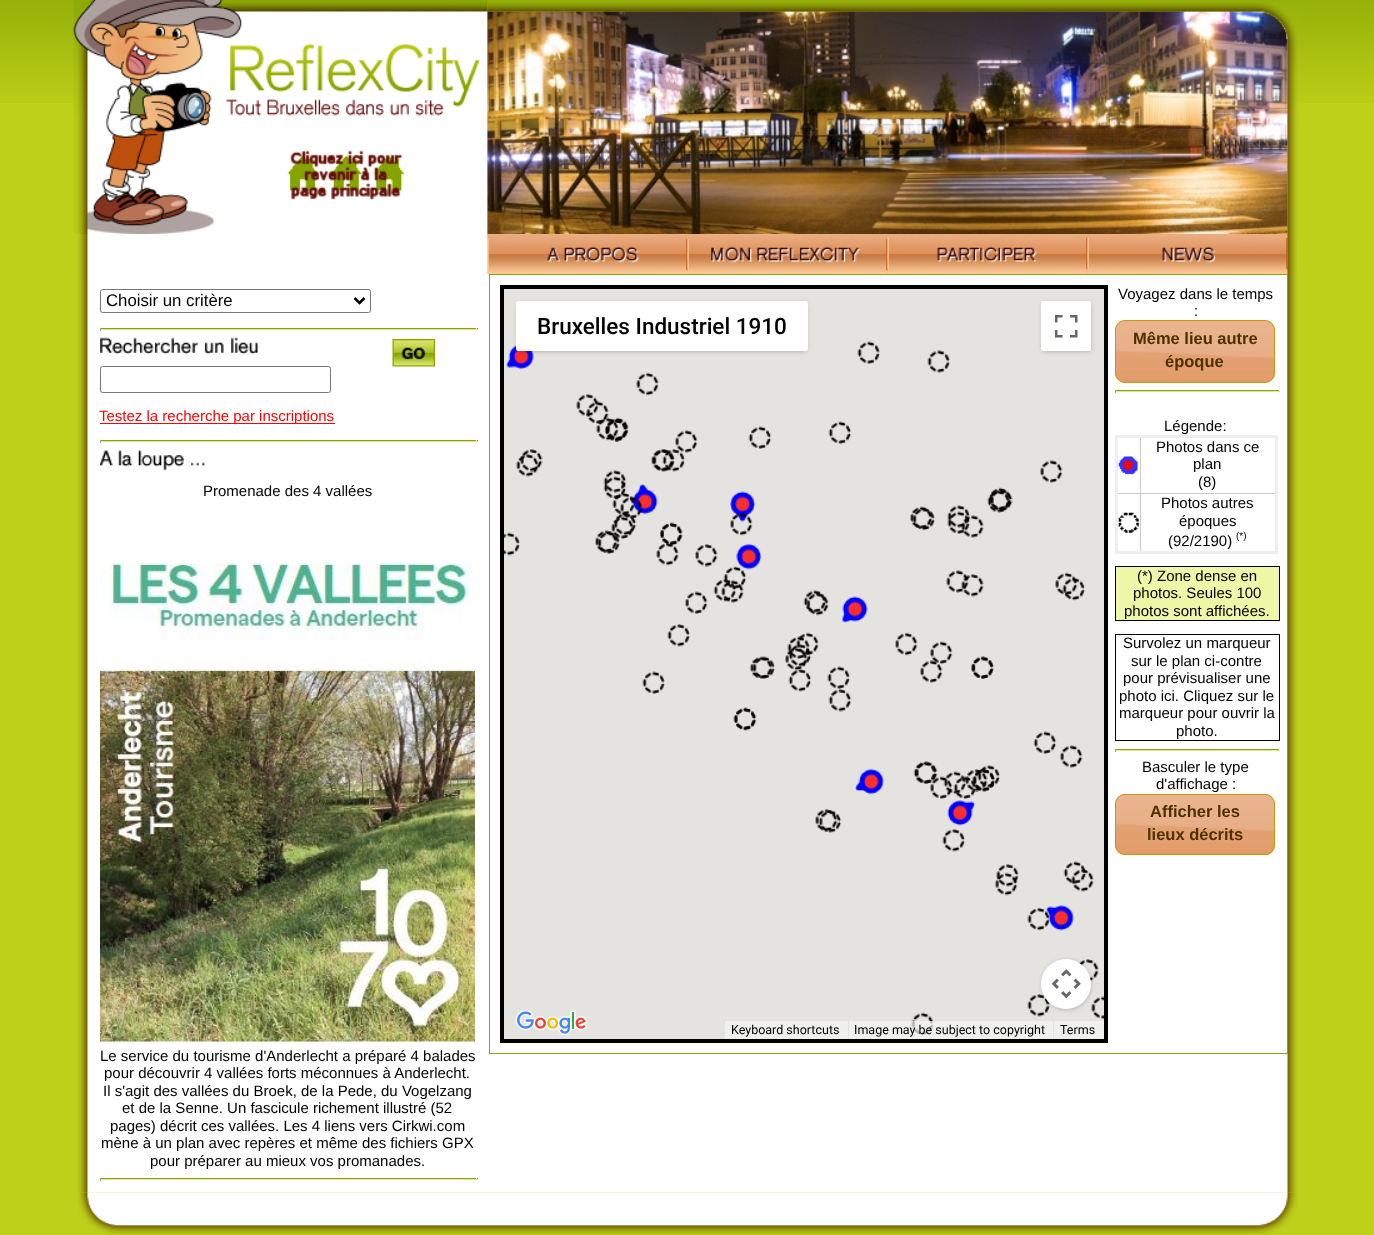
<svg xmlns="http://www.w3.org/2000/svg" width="1374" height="1235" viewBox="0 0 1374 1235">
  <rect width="100%" height="100%" fill="rgb(190,208,26)"/>
  <image x="0" y="0" width="1374" height="103" href="pic1.png"/>
  <image x="73" y="0" width="415" height="234" href="pic2.png"/>
  <image x="487" y="11" width="801" height="223" href="pic4.png"/>
  <image x="487" y="2" width="812" height="232" href="pic3.png"/>
  <image x="77" y="234" width="411" height="40" href="pic5.png"/>
  <image x="487" y="234" width="201" height="40" href="pic6.png"/>
  <image x="687" y="234" width="201" height="40" href="pic7.png"/>
  <image x="887" y="234" width="201" height="40" href="pic8.png"/>
  <image x="1087" y="234" width="201" height="40" href="pic9.png"/>
  <image x="1287" y="234" width="11" height="40" href="pic10.png"/>
  <image x="77" y="274" width="1221" height="919" href="pic11.png"/>
  <rect x="100.5" y="289.5" width="270" height="23" rx="2" fill="none" stroke="rgb(118,118,118)"/>
  <path d="M354.5 298L359.5 303L364.5 298" fill="none" stroke="rgb(0,0,0)" stroke-width="2.5"/>
  <text x="106" y="306" font-family="Liberation Sans" font-size="16.75" fill="rgb(0,0,0)">Choisir un critère</text>
  <rect x="100" y="328" width="378" height="1" fill="rgb(135,166,2)"/>
  <rect x="476" y="328" width="1" height="3" fill="rgb(238,238,238)"/>
  <rect x="100" y="329" width="378" height="1" fill="rgb(217,233,151)"/>
  <rect x="100" y="328" width="1" height="3" fill="rgb(159,159,159)"/>
  <image x="100" y="337" width="158" height="17" href="pic12.png"/>
  <image x="392" y="339" width="43" height="28" href="pic13.png"/>
  <rect x="100.5" y="366.5" width="230" height="26" rx="2" fill="none" stroke="rgb(118,118,118)"/>
  <rect x="100" y="423" width="235" height="1" fill="rgb(255,0,0)"/>
  <text x="99" y="421" font-family="Liberation Sans" font-size="15" fill="rgb(255,0,0)">Testez la recherche par inscriptions</text>
  <rect x="100" y="440" width="378" height="1" fill="rgb(135,166,2)"/>
  <rect x="476" y="440" width="1" height="3" fill="rgb(238,238,238)"/>
  <rect x="100" y="441" width="378" height="1" fill="rgb(217,233,151)"/>
  <rect x="100" y="440" width="1" height="3" fill="rgb(159,159,159)"/>
  <image x="100" y="450" width="105" height="21" href="pic14.png"/>
  <text x="203" y="496" font-family="Liberation Sans" font-size="15" fill="rgb(0,0,0)">Promenade des 4 vallées</text>
  <image x="100" y="562" width="375" height="480" href="pic15.png"/>
  <g font-family="Liberation Sans" font-size="15" fill="rgb(0,0,0)">
    <text x="100" y="1061">Le service du tourisme d'Anderlecht a préparé 4 balades</text>
    <text x="104" y="1078">pour découvrir 4 vallées forts méconnues à Anderlecht.</text>
    <text x="103" y="1096">Il s'agit des vallées du Broek, de la Pede, du Vogelzang</text>
    <text x="122" y="1113">et de la Senne. Un fascicule richement illustré (52</text>
    <text x="110" y="1131">pages) décrit ces vallées. Les 4 liens vers Cirkwi.com</text>
    <text x="101" y="1148">mène à un plan avec repères et même des fichiers GPX</text>
    <text x="150" y="1166">pour préparer au mieux vos promanades.</text>
  </g>
  <rect x="100" y="1178" width="378" height="1" fill="rgb(135,166,2)"/>
  <rect x="476" y="1178" width="1" height="3" fill="rgb(238,238,238)"/>
  <rect x="100" y="1179" width="378" height="1" fill="rgb(217,233,151)"/>
  <rect x="100" y="1178" width="1" height="3" fill="rgb(159,159,159)"/>
  <rect x="489.5" y="274.5" width="798" height="779" fill="none" stroke="rgb(135,166,2)"/>
  <rect x="502" y="287" width="604" height="754" fill="none" stroke="rgb(0,0,0)" stroke-width="4"/>
  <rect x="504" y="289" width="600" height="750" fill="rgb(229,227,223)"/>
  <image x="506" y="345" width="28" height="25" href="pic17.png"/>
  <rect x="518" y="304" width="288" height="47" rx="1" fill="rgba(0,0,0,0.3)" filter="blur(2.5px)"/>
  <rect x="516" y="301" width="292" height="50" rx="2.5" fill="rgb(255,255,255)"/>
  <text x="537" y="334" font-family="Roboto" font-size="22.5" font-weight="500" fill="rgb(0,0,0)">Bruxelles Industriel 1910</text>
  <rect x="1043" y="304" width="47" height="47" rx="1" fill="rgba(0,0,0,0.3)" filter="blur(2.5px)"/>
  <rect x="1041" y="301" width="50" height="50" rx="2.5" fill="rgb(255,255,255)"/>
  <image x="1055" y="315" width="23" height="23" href="pic16.png"/>
  <image x="857" y="341" width="23" height="23" href="pic18.png"/>
  <image x="927" y="350" width="23" height="23" href="pic19.png"/>
  <image x="636" y="372" width="23" height="24" href="pic20.png"/>
  <image x="576" y="394" width="23" height="23" href="pic21.png"/>
  <image x="586" y="401" width="23" height="23" href="pic22.png"/>
  <image x="596" y="417" width="23" height="24" href="pic23.png"/>
  <image x="606" y="417" width="23" height="24" href="pic24.png"/>
  <image x="605" y="419" width="23" height="23" href="pic25.png"/>
  <image x="605" y="419" width="23" height="23" href="pic26.png"/>
  <image x="675" y="430" width="23" height="23" href="pic27.png"/>
  <image x="748" y="426" width="24" height="23" href="pic28.png"/>
  <image x="828" y="421" width="24" height="23" href="pic28.png"/>
  <image x="520" y="449" width="23" height="23" href="pic29.png"/>
  <image x="652" y="449" width="23" height="23" href="pic31.png"/>
  <image x="651" y="449" width="23" height="23" href="pic30.png"/>
  <image x="516" y="454" width="23" height="23" href="pic32.png"/>
  <image x="603" y="470" width="24" height="23" href="pic33.png"/>
  <image x="662" y="449" width="23" height="23" href="pic34.png"/>
  <image x="1040" y="460" width="23" height="23" href="pic27.png"/>
  <image x="603" y="476" width="24" height="23" href="pic35.png"/>
  <image x="632" y="484" width="26" height="31" href="pic36.png"/>
  <image x="988" y="487" width="24" height="24" href="pic37.png"/>
  <image x="990" y="489" width="23" height="23" href="pic38.png"/>
  <image x="612" y="492" width="23" height="24" href="pic39.png"/>
  <image x="730" y="491" width="25" height="31" href="pic40.png"/>
  <image x="987" y="490" width="23" height="23" href="pic41.png"/>
  <image x="620" y="496" width="23" height="23" href="pic42.png"/>
  <image x="910" y="506" width="23" height="23" href="pic43.png"/>
  <image x="947" y="505" width="23" height="23" href="pic19.png"/>
  <image x="613" y="513" width="24" height="23" href="pic44.png"/>
  <image x="730" y="512" width="23" height="24" href="pic45.png"/>
  <image x="912" y="507" width="23" height="24" href="pic46.png"/>
  <image x="947" y="511" width="23" height="23" href="pic47.png"/>
  <image x="961" y="515" width="23" height="23" href="pic48.png"/>
  <image x="611" y="516" width="23" height="23" href="pic49.png"/>
  <image x="660" y="522" width="23" height="24" href="pic50.png"/>
  <image x="595" y="530" width="23" height="23" href="pic51.png"/>
  <image x="660" y="522" width="23" height="24" href="pic52.png"/>
  <image x="504" y="532" width="16" height="24" href="pic53.png"/>
  <image x="597" y="531" width="23" height="23" href="pic54.png"/>
  <image x="656" y="542" width="23" height="24" href="pic55.png"/>
  <image x="695" y="544" width="23" height="23" href="pic56.png"/>
  <image x="736" y="543" width="26" height="27" href="pic57.png"/>
  <image x="723" y="566" width="24" height="23" href="pic58.png"/>
  <image x="946" y="570" width="23" height="23" href="pic59.png"/>
  <image x="961" y="574" width="23" height="23" href="pic60.png"/>
  <image x="1055" y="572" width="23" height="24" href="pic50.png"/>
  <image x="713" y="579" width="24" height="23" href="pic61.png"/>
  <image x="1062" y="577" width="23" height="24" href="pic62.png"/>
  <image x="685" y="591" width="23" height="23" href="pic43.png"/>
  <image x="721" y="580" width="23" height="23" href="pic63.png"/>
  <image x="803" y="590" width="24" height="23" href="pic33.png"/>
  <image x="806" y="593" width="23" height="23" href="pic64.png"/>
  <image x="842" y="596" width="26" height="27" href="pic65.png"/>
  <image x="667" y="624" width="23" height="23" href="pic31.png"/>
  <image x="796" y="632" width="23" height="24" href="pic20.png"/>
  <image x="895" y="632" width="23" height="24" href="pic50.png"/>
  <image x="787" y="636" width="23" height="23" href="pic66.png"/>
  <image x="930" y="641" width="23" height="23" href="pic43.png"/>
  <image x="788" y="644" width="24" height="23" href="pic67.png"/>
  <image x="750" y="656" width="23" height="23" href="pic43.png"/>
  <image x="785" y="647" width="23" height="24" href="pic68.png"/>
  <image x="752" y="656" width="23" height="23" href="pic69.png"/>
  <image x="971" y="656" width="23" height="23" href="pic70.png"/>
  <image x="642" y="671" width="23" height="23" href="pic18.png"/>
  <image x="788" y="669" width="24" height="23" href="pic71.png"/>
  <image x="827" y="666" width="23" height="23" href="pic18.png"/>
  <image x="920" y="660" width="23" height="23" href="pic72.png"/>
  <image x="971" y="656" width="23" height="23" href="pic73.png"/>
  <image x="828" y="689" width="24" height="23" href="pic74.png"/>
  <image x="733" y="707" width="24" height="24" href="pic37.png"/>
  <image x="733" y="707" width="24" height="24" href="pic75.png"/>
  <image x="1033" y="731" width="24" height="23" href="pic28.png"/>
  <image x="1060" y="745" width="23" height="23" href="pic27.png"/>
  <image x="913" y="761" width="24" height="23" href="pic28.png"/>
  <image x="855" y="768" width="29" height="27" href="pic76.png"/>
  <image x="915" y="761" width="23" height="23" href="pic77.png"/>
  <image x="977" y="765" width="23" height="23" href="pic19.png"/>
  <image x="972" y="769" width="23" height="23" href="pic79.png"/>
  <image x="972" y="769" width="23" height="23" href="pic82.png"/>
  <image x="965" y="769" width="23" height="23" href="pic78.png"/>
  <image x="943" y="771" width="24" height="23" href="pic81.png"/>
  <image x="930" y="776" width="23" height="23" href="pic80.png"/>
  <image x="953" y="776" width="23" height="23" href="pic83.png"/>
  <image x="815" y="809" width="23" height="23" href="pic56.png"/>
  <image x="947" y="800" width="29" height="26" href="pic84.png"/>
  <image x="818" y="810" width="24" height="23" href="pic85.png"/>
  <image x="942" y="829" width="23" height="23" href="pic31.png"/>
  <image x="996" y="864" width="23" height="23" href="pic21.png"/>
  <image x="1063" y="861" width="24" height="23" href="pic28.png"/>
  <image x="995" y="872" width="23" height="24" href="pic86.png"/>
  <image x="1071" y="869" width="23" height="23" href="pic87.png"/>
  <image x="1046" y="905" width="28" height="26" href="pic89.png"/>
  <image x="1027" y="907" width="23" height="24" href="pic88.png"/>
  <image x="1078" y="959" width="21" height="22" href="pic90.png"/>
  <image x="1027" y="994" width="23" height="23" href="pic31.png"/>
  <image x="1091" y="996" width="13" height="23" href="pic91.png"/>
  <image x="911" y="1012" width="23" height="24" href="pic20.png"/>
  <rect x="1043" y="961" width="47" height="48" rx="23.5" fill="rgba(0,0,0,0.3)" filter="blur(2.5px)"/>
  <circle cx="1066" cy="984" r="25" fill="rgb(255,255,255)"/>
  <image x="1051" y="969" width="30" height="30" href="pic92.png"/>
  <image x="515" y="1010" width="73" height="26" href="pic93.png"/>
  <rect x="725" y="1021" width="123" height="18" fill="rgb(240,240,238)"/>
  <text x="731" y="1034" font-family="Roboto" font-size="12.5" fill="rgb(0,0,0)">Keyboard shortcuts</text>
  <rect x="849" y="1021" width="204" height="18" fill="rgba(245,245,245,0.7)"/>
  <text x="854" y="1034" font-family="Roboto" font-size="12.5" fill="rgb(0,0,0)">Image may be subject to copyright</text>
  <rect x="1054" y="1021" width="50" height="18" fill="rgb(240,240,238)"/>
  <text x="1060" y="1034" font-family="Roboto" font-size="12.5" fill="rgb(0,0,0)">Terms</text>
  <g font-family="Liberation Sans" font-size="15" fill="rgb(0,0,0)">
    <text x="1118" y="299">Voyagez dans le temps</text>
    <text x="1194" y="316">:</text>
  </g>
  <image x="1115" y="320" width="160" height="63" href="pic94.png"/>
  <rect x="1115.5" y="320.5" width="159" height="62" rx="9.5" fill="none" stroke="rgb(209,148,5)"/>
  <g font-family="Liberation Sans" font-size="16.5" font-weight="bold" fill="rgb(76,48,0)">
    <text x="1133" y="344">Même lieu autre</text>
    <text x="1165" y="367">époque</text>
  </g>
  <rect x="1115" y="390" width="165" height="1" fill="rgb(135,166,2)"/>
  <rect x="1279" y="390" width="1" height="3" fill="rgb(238,238,238)"/>
  <rect x="1115" y="391" width="165" height="1" fill="rgb(217,233,151)"/>
  <rect x="1115" y="390" width="1" height="3" fill="rgb(159,159,159)"/>
  <text x="1164" y="431" font-family="Liberation Sans" font-size="15" fill="rgb(0,0,0)">Légende:</text>
  <rect x="1140" y="493" width="136" height="1" fill="rgb(204,204,204)"/>
  <rect x="1140" y="493" width="1" height="60" fill="rgb(204,204,204)"/>
  <rect x="1115" y="493" width="26" height="1" fill="rgb(204,204,204)"/>
  <rect x="1140" y="435" width="1" height="59" fill="rgb(204,204,204)"/>
  <rect x="1115" y="435" width="163" height="3" fill="rgb(238,238,238)"/>
  <rect x="1275" y="435" width="3" height="119" fill="rgb(238,238,238)"/>
  <rect x="1115" y="551" width="163" height="3" fill="rgb(238,238,238)"/>
  <rect x="1115" y="435" width="3" height="119" fill="rgb(238,238,238)"/>
  <image x="1118" y="456" width="20" height="19" href="pic95.png"/>
  <g font-family="Liberation Sans" font-size="15" fill="rgb(0,0,0)">
    <text x="1156" y="452">Photos dans ce</text>
    <text x="1193" y="469">plan</text>
    <text x="1198" y="487">(8)</text>
  </g>
  <image x="1116" y="512" width="25" height="21" href="pic96.png"/>
  <g font-family="Liberation Sans" font-size="15" fill="rgb(0,0,0)">
    <text x="1161" y="508">Photos autres</text>
    <text x="1179" y="526">époques</text>
    <text x="1168" y="546">(92/2190)</text>
  </g>
  <text x="1236" y="539" font-family="Liberation Sans" font-size="10" fill="rgb(0,0,0)">(*)</text>
  <rect x="1115.5" y="566.5" width="164" height="54" fill="rgb(238,246,168)" stroke="rgb(0,0,0)"/>
  <g font-family="Liberation Sans" font-size="15" fill="rgb(0,0,0)">
    <text x="1137" y="581">(*) Zone dense en</text>
    <text x="1133" y="598">photos. Seules 100</text>
    <text x="1124" y="616">photos sont affichées.</text>
  </g>
  <rect x="1115.5" y="634.5" width="164" height="106" fill="none" stroke="rgb(0,0,0)"/>
  <g font-family="Liberation Sans" font-size="15" fill="rgb(0,0,0)">
    <text x="1123" y="648">Survolez un marqueur</text>
    <text x="1131" y="666">sur le plan ci-contre</text>
    <text x="1123" y="683">pour prévisualiser une</text>
    <text>
      <tspan x="1119" y="701">photo ici. Cliquez sur le</tspan>
      <tspan x="1119" y="718">marqueur pour ouvrir la</tspan>
    </text>
    <text x="1176" y="736">photo.</text>
  </g>
  <rect x="1115" y="749" width="165" height="1" fill="rgb(135,166,2)"/>
  <rect x="1279" y="749" width="1" height="3" fill="rgb(238,238,238)"/>
  <rect x="1115" y="750" width="165" height="1" fill="rgb(217,233,151)"/>
  <rect x="1115" y="749" width="1" height="3" fill="rgb(159,159,159)"/>
  <g font-family="Liberation Sans" font-size="15" fill="rgb(0,0,0)">
    <text x="1142" y="772">Basculer le type</text>
    <text x="1156" y="789">d'affichage :</text>
  </g>
  <image x="1115" y="794" width="160" height="62" href="pic97.png"/>
  <rect x="1115.5" y="794.5" width="159" height="60" rx="9.5" fill="none" stroke="rgb(209,148,5)"/>
  <g font-family="Liberation Sans" font-size="16.5" font-weight="bold" fill="rgb(76,48,0)">
    <text x="1150" y="817">Afficher les</text>
    <text x="1147" y="840">lieux décrits</text>
  </g>
  <image x="77" y="1192" width="1221" height="43" href="pic98.png"/>
</svg>
